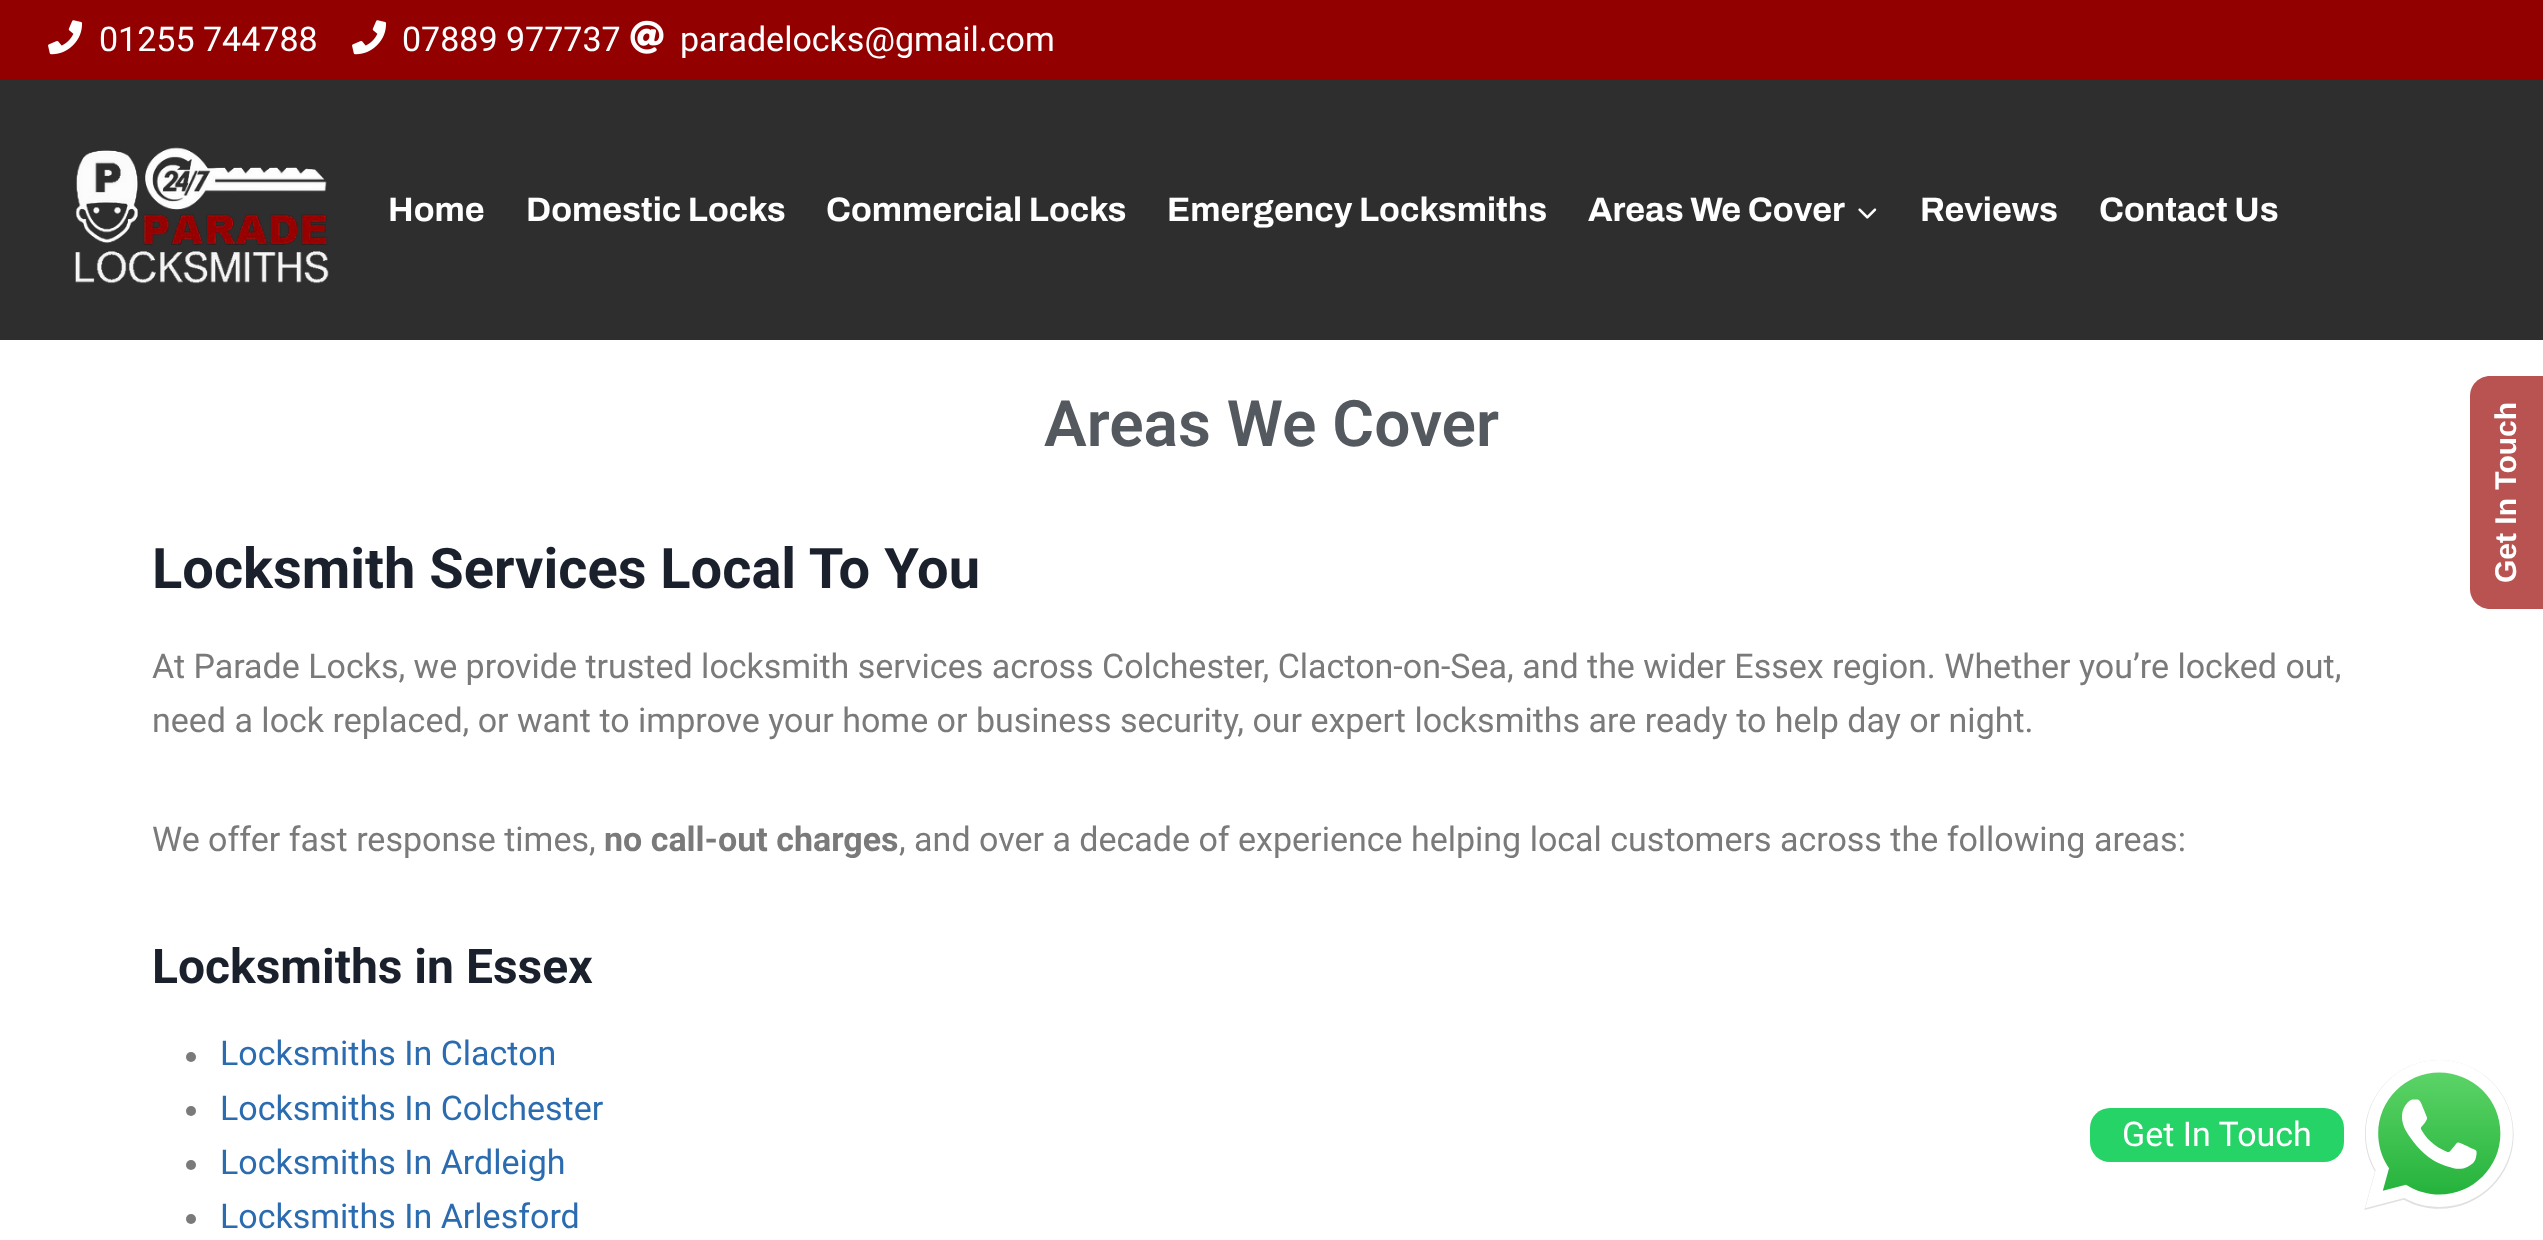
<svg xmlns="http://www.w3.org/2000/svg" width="2543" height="1240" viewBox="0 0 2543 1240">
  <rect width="100%" height="100%" fill="rgb(255,255,255)"/>
  <rect x="0" y="0" width="2543" height="80" fill="rgb(146,1,0)"/>
  <image x="48" y="20" width="35" height="35" href="pic1.png"/>
  <text x="99" y="51" font-family="Roboto" font-size="34" fill="rgb(255,255,255)">01255 744788</text>
  <image x="352" y="20" width="35" height="35" href="pic1.png"/>
  <text x="402" y="51" font-family="Roboto" font-size="34" fill="rgb(255,255,255)">07889 977737</text>
  <image x="630" y="20" width="34" height="34" href="pic2.png"/>
  <text x="680" y="51" font-family="Roboto" font-size="34" fill="rgb(255,255,255)">paradelocks@gmail.com</text>
  <rect x="0" y="80" width="2543" height="260" fill="rgb(47,46,46)"/>
  <image x="75" y="147" width="254" height="137" href="pic3.png"/>
  <g font-family="Archivo" font-size="34" font-weight="bold" fill="rgb(255,255,255)">
    <text x="388" y="221">Home</text>
    <text x="526" y="221">Domestic Locks</text>
    <text x="826" y="221">Commercial Locks</text>
    <text x="1167" y="221">Emergency Locksmiths</text>
    <text x="1588" y="221">Areas We Cover</text>
  </g>
  <image x="1858" y="208" width="19" height="11" href="pic4.png"/>
  <g font-family="Archivo" font-size="34" font-weight="bold" fill="rgb(255,255,255)">
    <text x="1920" y="221">Reviews</text>
    <text x="2099" y="221">Contact Us</text>
  </g>
  <text x="1044" y="446" font-family="Roboto" font-size="64" font-weight="600" fill="rgb(84,89,95)">Areas We Cover</text>
  <text x="152" y="588" font-family="Roboto" font-size="56" font-weight="bold" fill="rgb(26,32,44)">Locksmith Services Local To You</text>
  <g font-family="Roboto" font-size="34" fill="rgb(122,122,122)">
    <text>
      <tspan x="152" y="678">At Parade Locks, we provide trusted locksmith services across Colchester, Clacton-on-Sea, and the wider Essex region. Whether you’re locked out,</tspan>
      <tspan x="152" y="732">need a lock replaced, or want to improve your home or business security, our expert locksmiths are ready to help day or night.</tspan>
    </text>
    <text x="152" y="851">We offer fast response times,</text>
  </g>
  <text x="604" y="851" font-family="Roboto" font-size="34" font-weight="bold" fill="rgb(122,122,122)">no call-out charges</text>
  <text x="899" y="851" font-family="Roboto" font-size="34" fill="rgb(122,122,122)">, and over a decade of experience helping local customers across the following areas:</text>
  <text x="152" y="983" font-family="Roboto" font-size="48" font-weight="bold" fill="rgb(26,32,44)">Locksmiths in Essex</text>
  <circle cx="191" cy="1057" r="5" fill="rgb(122,122,122)"/>
  <text x="220" y="1065" font-family="Roboto" font-size="34" fill="rgb(43,108,176)">Locksmiths In Clacton</text>
  <circle cx="191" cy="1111" r="5" fill="rgb(122,122,122)"/>
  <text x="220" y="1120" font-family="Roboto" font-size="34" fill="rgb(43,108,176)">Locksmiths In Colchester</text>
  <circle cx="191" cy="1165" r="5" fill="rgb(122,122,122)"/>
  <text x="220" y="1174" font-family="Roboto" font-size="34" fill="rgb(43,108,176)">Locksmiths In Ardleigh</text>
  <circle cx="191" cy="1219" r="5" fill="rgb(122,122,122)"/>
  <text x="220" y="1228" font-family="Roboto" font-size="34" fill="rgb(43,108,176)">Locksmiths In Arlesford</text>
  <path d="M2470 589V396C2470 385 2479 376 2490 376H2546V609H2490C2479 609 2470 600 2470 589Z" fill="rgb(184,83,82)"/>
  <text x="2516" y="583" transform="rotate(-90 2516 583)" font-family="Liberation Sans" font-size="30" font-weight="bold" fill="rgb(255,255,255)">Get In Touch</text>
  <rect x="2090" y="1108" width="254" height="54" rx="20" fill="rgb(37,211,102)"/>
  <text x="2122" y="1146" font-family="Roboto" font-size="34" fill="rgb(255,255,255)">Get In Touch</text>
  <image x="2364" y="1060" width="150" height="150" href="pic5.png"/>
</svg>
